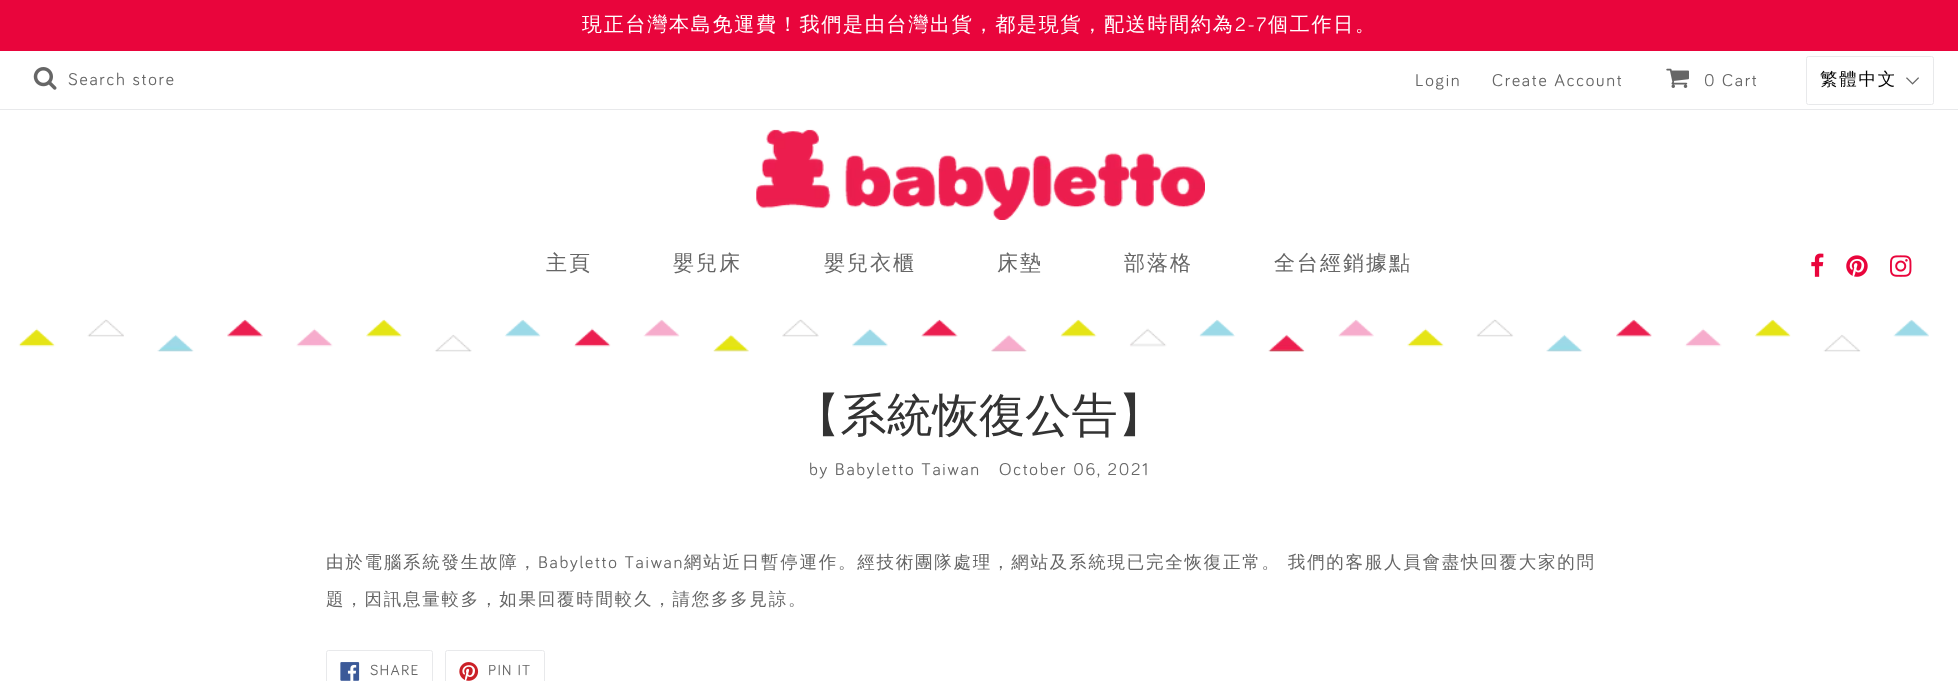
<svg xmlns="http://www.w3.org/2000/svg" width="1958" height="681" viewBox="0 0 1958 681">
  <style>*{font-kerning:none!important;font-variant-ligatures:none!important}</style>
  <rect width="100%" height="100%" fill="rgb(255,255,255)"/>
  <rect x="0" y="0" width="1958" height="51" fill="rgb(233,5,60)"/>
  <text x="582" y="31" font-family="WenQuanYi Zen Hei" font-size="20" font-weight="500" letter-spacing="1.75" fill="rgb(255,255,255)">現正台灣本島免運費！我們是由台灣出貨，都是現貨，配送時間約為</text>
  <text x="1235" y="31" font-family="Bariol" font-size="20" letter-spacing="1.75" fill="rgb(255,255,255)">2-7</text>
  <text x="1268" y="31" font-family="WenQuanYi Zen Hei" font-size="20" font-weight="500" letter-spacing="1.75" fill="rgb(255,255,255)">個工作日。</text>
  <rect x="0" y="109" width="1958" height="1" fill="rgb(232,233,235)"/>
  <image x="33" y="67" width="24" height="23" href="pic1.png"/>
  <g font-family="Bariol" font-size="17.5" letter-spacing="1.75" fill="rgb(102,102,102)">
    <text x="68" y="85">Search store</text>
    <text x="1415" y="86">Login</text>
    <text x="1492" y="86">Create Account</text>
  </g>
  <image x="1666" y="68" width="23" height="20" href="pic2.png"/>
  <g font-family="Bariol" font-size="17.5" letter-spacing="1.75" fill="rgb(102,102,102)">
    <text x="1704" y="86">0</text>
    <text x="1722" y="86">Cart</text>
  </g>
  <image x="1906" y="77" width="13" height="8" href="pic3.png"/>
  <rect x="1806.5" y="56.5" width="127" height="48" rx="2" fill="none" stroke="rgb(232,233,235)"/>
  <text x="1820" y="85" font-family="WenQuanYi Zen Hei" font-size="17.5" font-weight="500" letter-spacing="1.75" fill="rgb(0,0,0)">繁體中文</text>
  <image x="756" y="129" width="449" height="91" href="pic4.png"/>
  <g font-family="WenQuanYi Zen Hei" font-size="21" font-weight="500" letter-spacing="2" fill="rgb(102,102,102)">
    <text x="546" y="270">主頁</text>
    <text x="673" y="270">嬰兒床</text>
    <text x="824" y="270">嬰兒衣櫃</text>
    <text x="997" y="270">床墊</text>
    <text x="1124" y="270">部落格</text>
    <text x="1274" y="270">全台經銷據點</text>
  </g>
  <image x="1811" y="253" width="13" height="24" href="pic5.png"/>
  <image x="1846" y="255" width="22" height="22" href="pic6.png"/>
  <image x="1890" y="255" width="22" height="22" href="pic7.png"/>
  <image x="18" y="319" width="1911" height="33" href="pic8.png"/>
  <text x="794" y="431" font-family="WenQuanYi Zen Hei" font-size="46.25" font-weight="500" fill="rgb(51,51,51)">【系統恢復公告】</text>
  <g font-family="Bariol" font-size="17.5" letter-spacing="1.75" fill="rgb(102,102,102)">
    <text x="809" y="475">by Babyletto Taiwan</text>
    <text x="999" y="475">October 06, 2021</text>
  </g>
  <text x="326" y="568" font-family="WenQuanYi Zen Hei" font-size="17.5" font-weight="500" letter-spacing="1.75" fill="rgb(102,102,102)">由於電腦系統發生故障，</text>
  <text x="538" y="568" font-family="Bariol" font-size="17.5" letter-spacing="1.75" fill="rgb(102,102,102)">Babyletto Taiwan</text>
  <g font-family="WenQuanYi Zen Hei" font-size="17.5" font-weight="500" letter-spacing="1.75" fill="rgb(102,102,102)">
    <text x="684" y="568">網站近日暫停運作。經技術團隊處理，網站及系統現已完全恢復正常。 我們的客服人員會盡快回覆大家的問</text>
    <text x="326" y="605">題，因訊息量較多，如果回覆時間較久，請您多多見諒。</text>
  </g>
  <rect x="326.5" y="650.5" width="106" height="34" rx="2" fill="none" stroke="rgb(232,233,235)"/>
  <image x="340" y="662" width="20" height="19" href="pic9.png"/>
  <text x="370" y="675" font-family="Bariol" font-size="15" letter-spacing="1.25" fill="rgb(102,102,102)">SHARE</text>
  <rect x="445.5" y="650.5" width="99" height="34" rx="2" fill="none" stroke="rgb(232,233,235)"/>
  <image x="459" y="662" width="20" height="19" href="pic10.png"/>
  <text x="488" y="675" font-family="Bariol" font-size="15" letter-spacing="1.25" fill="rgb(102,102,102)">PIN IT</text>
</svg>
